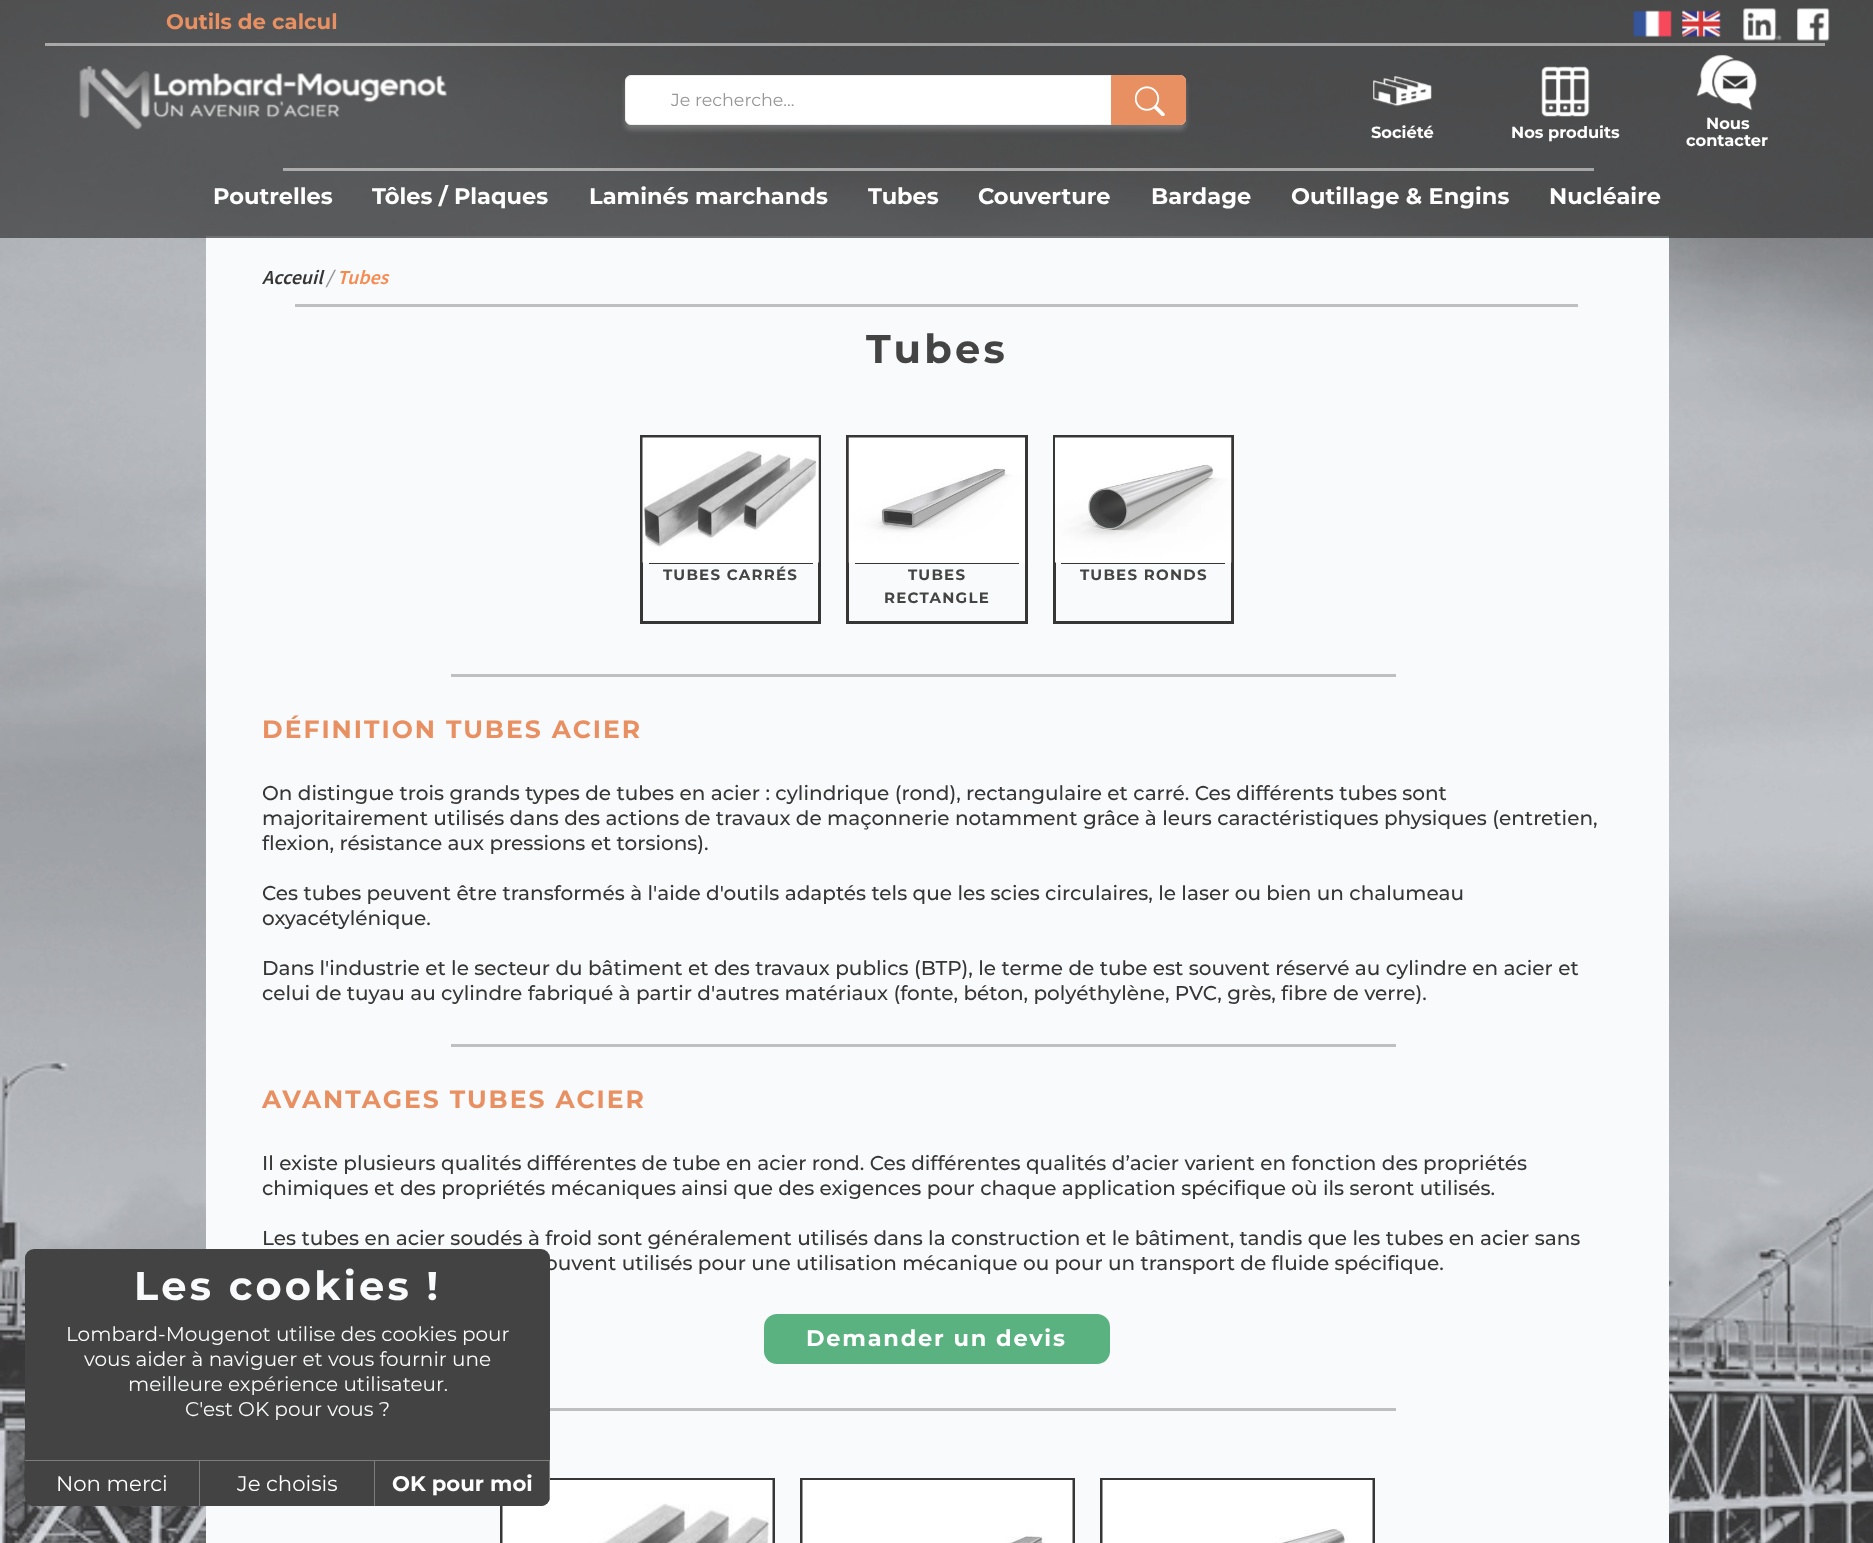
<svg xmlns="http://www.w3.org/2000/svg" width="1873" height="1543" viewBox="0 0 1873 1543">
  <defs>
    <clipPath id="clip1"><rect x="25" y="1249" width="525" height="257" rx="9"/></clipPath>
  </defs>
  <rect width="100%" height="100%" fill="rgb(255,255,255)"/>
  <image x="0" y="0" width="1873" height="1543" href="pic1.png"/>
  <rect x="206" y="236" width="1463" height="1307" fill="rgb(249,250,251)"/>
  <rect x="0" y="0" width="1873" height="238" fill="rgba(54,54,54,0.7)"/>
  <text x="166" y="29" font-family="Montserrat" font-size="21.25" font-weight="bold" fill="rgb(232,144,98)">Outils de calcul</text>
  <image x="1633" y="10" width="39" height="27" href="pic2.png"/>
  <image x="1682" y="10" width="39" height="27" href="pic3.png"/>
  <image x="1743" y="8" width="39" height="33" href="pic4.png"/>
  <image x="1797" y="8" width="33" height="33" href="pic5.png"/>
  <rect x="45" y="43" width="1780" height="3" fill="rgba(255,255,255,0.5)"/>
  <image x="79" y="66" width="368" height="64" href="pic6.png"/>
  <rect x="625" y="80" width="561" height="50" rx="6" fill="rgba(222,222,222,0.25)" filter="blur(2.5px)"/>
  <rect x="625.5" y="75.5" width="560" height="49" rx="5.5" fill="rgb(255,255,255)" stroke="rgb(239,239,239)"/>
  <text x="671" y="106" font-family="Montserrat" font-size="17.5" fill="rgb(150,150,150)">Je recherche...</text>
  <path d="M1111.5 75.5H1180C1183 75.5 1185.5 78 1185.5 81V119C1185.5 122 1183 124.5 1180 124.5H1111.5Z" fill="rgb(232,144,98)" stroke="rgb(232,144,98)"/>
  <image x="1135" y="86" width="30" height="30" href="pic7.png"/>
  <image x="1373" y="76" width="59" height="31" href="pic8.png"/>
  <text x="1371" y="138" font-family="Montserrat" font-size="16.25" font-weight="bold" fill="rgb(255,255,255)">Société</text>
  <image x="1541" y="66" width="49" height="51" href="pic9.png"/>
  <text x="1511" y="138" font-family="Montserrat" font-size="16.25" font-weight="bold" fill="rgb(255,255,255)">Nos produits</text>
  <image x="1696" y="54" width="61" height="57" href="pic10.png"/>
  <g font-family="Montserrat" font-size="16.25" font-weight="bold" fill="rgb(255,255,255)">
    <text x="1706" y="129">Nous</text>
    <text x="1686" y="146">contacter</text>
  </g>
  <rect x="283" y="168" width="1311" height="3" fill="rgba(255,255,255,0.5)"/>
  <g font-family="Montserrat" font-size="22.5" font-weight="bold" fill="rgb(255,255,255)">
    <text x="213" y="204">Poutrelles</text>
    <text x="372" y="204">Tôles / Plaques</text>
    <text x="589" y="204">Laminés marchands</text>
    <text x="868" y="204">Tubes</text>
    <text x="978" y="204">Couverture</text>
    <text x="1151" y="204">Bardage</text>
    <text x="1291" y="204">Outillage &amp; Engins</text>
    <text x="1549" y="204">Nucléaire</text>
  </g>
  <text x="262" y="284" font-family="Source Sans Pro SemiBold" font-size="20" font-weight="600" font-style="italic" fill="rgb(54,54,54)">Acceuil</text>
  <text x="326" y="284" font-family="Source Sans Pro SemiBold" font-size="20" font-weight="600" font-style="italic" fill="rgb(150,150,150)">/</text>
  <text x="337" y="284" font-family="Source Sans Pro SemiBold" font-size="20" font-weight="600" font-style="italic" fill="rgb(246,138,80)">Tubes</text>
  <rect x="295" y="304" width="1283" height="3" fill="rgb(190,191,192)"/>
  <text x="866" y="363" font-family="Montserrat" font-size="40" font-weight="bold" letter-spacing="3.25" fill="rgb(68,68,68)">Tubes</text>
  <rect x="641.5" y="436.5" width="178" height="186" fill="none" stroke="rgb(54,54,54)" stroke-width="3"/>
  <image x="642" y="437" width="177" height="126" href="pic11.png"/>
  <rect x="649" y="563" width="164" height="1" fill="rgb(54,54,54)"/>
  <text x="663" y="580" font-family="Montserrat" font-size="15" font-weight="bold" letter-spacing="1.25" fill="rgb(68,68,68)">TUBES CARRÉS</text>
  <rect x="847.5" y="436.5" width="179" height="186" fill="none" stroke="rgb(54,54,54)" stroke-width="3"/>
  <image x="848" y="437" width="177" height="126" href="pic12.png"/>
  <rect x="855" y="563" width="164" height="1" fill="rgb(54,54,54)"/>
  <g font-family="Montserrat" font-size="15" font-weight="bold" letter-spacing="1.25" fill="rgb(68,68,68)">
    <text x="908" y="580">TUBES</text>
    <text x="884" y="603">RECTANGLE</text>
  </g>
  <rect x="1054.5" y="436.5" width="178" height="186" fill="none" stroke="rgb(54,54,54)" stroke-width="3"/>
  <image x="1055" y="437" width="177" height="126" href="pic13.png"/>
  <rect x="1061" y="563" width="164" height="1" fill="rgb(54,54,54)"/>
  <text x="1080" y="580" font-family="Montserrat" font-size="15" font-weight="bold" letter-spacing="1.25" fill="rgb(68,68,68)">TUBES RONDS</text>
  <rect x="451" y="674" width="945" height="3" fill="rgb(190,191,192)"/>
  <text x="262" y="738" font-family="Montserrat" font-size="25" font-weight="bold" letter-spacing="2" fill="rgb(232,144,98)">DÉFINITION TUBES ACIER</text>
  <g font-family="Montserrat" font-size="20" font-weight="500" fill="rgb(54,54,54)">
    <text>
      <tspan x="262" y="800">On distingue trois grands types de tubes en acier : cylindrique (rond), rectangulaire et carré. Ces différents tubes sont</tspan>
      <tspan x="262" y="825">majoritairement utilisés dans des actions de travaux de maçonnerie notamment grâce à leurs caractéristiques physiques (entretien,</tspan>
      <tspan x="262" y="850">flexion, résistance aux pressions et torsions).</tspan>
    </text>
    <text>
      <tspan x="262" y="900">Ces tubes peuvent être transformés à l'aide d'outils adaptés tels que les scies circulaires, le laser ou bien un chalumeau</tspan>
      <tspan x="262" y="925">oxyacétylénique.</tspan>
    </text>
    <text>
      <tspan x="262" y="975">Dans l'industrie et le secteur du bâtiment et des travaux publics (BTP), le terme de tube est souvent réservé au cylindre en acier et</tspan>
      <tspan x="262" y="1000">celui de tuyau au cylindre fabriqué à partir d'autres matériaux (fonte, béton, polyéthylène, PVC, grès, fibre de verre).</tspan>
    </text>
  </g>
  <rect x="451" y="1044" width="945" height="3" fill="rgb(190,191,192)"/>
  <text x="262" y="1108" font-family="Montserrat" font-size="25" font-weight="bold" letter-spacing="2" fill="rgb(232,144,98)">AVANTAGES TUBES ACIER</text>
  <g font-family="Montserrat" font-size="20" font-weight="500" fill="rgb(54,54,54)">
    <text>
      <tspan x="262" y="1170">Il existe plusieurs qualités différentes de tube en acier rond. Ces différentes qualités d’acier varient en fonction des propriétés</tspan>
      <tspan x="262" y="1195">chimiques et des propriétés mécaniques ainsi que des exigences pour chaque application spécifique où ils seront utilisés.</tspan>
    </text>
    <text x="262" y="1245">Les tubes en acier soudés à froid sont généralement utilisés dans la construction et le bâtiment, tandis que les tubes en acier sans</text>
    <text x="545" y="1270">ouvent utilisés pour une utilisation mécanique ou pour un transport de fluide spécifique.</text>
  </g>
  <rect x="764" y="1314" width="346" height="50" rx="13" fill="rgb(91,178,129)"/>
  <text x="806" y="1346" font-family="Montserrat" font-size="22.5" font-weight="bold" letter-spacing="1.75" fill="rgb(255,255,255)">Demander un devis</text>
  <rect x="550" y="1408" width="846" height="3" fill="rgb(190,191,192)"/>
  <rect x="501.5" y="1479.5" width="272" height="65" fill="none" stroke="rgb(54,54,54)" stroke-width="3"/>
  <image x="502" y="1480" width="271" height="63" href="pic14.png"/>
  <rect x="801.5" y="1479.5" width="272" height="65" fill="none" stroke="rgb(54,54,54)" stroke-width="3"/>
  <image x="802" y="1480" width="271" height="63" href="pic15.png"/>
  <rect x="1101.5" y="1479.5" width="272" height="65" fill="none" stroke="rgb(54,54,54)" stroke-width="3"/>
  <image x="1102" y="1480" width="271" height="63" href="pic16.png"/>
  <rect x="25" y="1249" width="525" height="257" rx="9" fill="rgb(67,67,67)"/>
  <text x="134" y="1300" font-family="Montserrat" font-size="40" font-weight="bold" letter-spacing="3.25" fill="rgb(249,250,251)">Les cookies !</text>
  <g font-family="Montserrat" font-size="20" fill="rgb(249,250,251)">
    <text x="66" y="1341">Lombard-Mougenot utilise des cookies pour</text>
    <text x="84" y="1366">vous aider à naviguer et vous fournir une</text>
    <text x="128" y="1391">meilleure expérience utilisateur.</text>
    <text x="185" y="1416">C'est OK pour vous ?</text>
  </g>
  <path d="M25 1461H199V1506H34C29 1506 25 1502 25 1497Z" fill="rgb(67,67,67)"/>
  <rect x="25" y="1460" width="525" height="1" fill="rgb(125,125,125)"/>
  <rect x="199" y="1460" width="1" height="46" fill="rgb(125,125,125)"/>
  <text x="56" y="1491" font-family="Montserrat" font-size="21.25" fill="rgb(255,255,255)">Non merci</text>
  <rect x="374" y="1460" width="1" height="46" fill="rgb(125,125,125)"/>
  <text x="237" y="1491" font-family="Montserrat" font-size="21.25" fill="rgb(255,255,255)">Je choisis</text>
  <g clip-path="url(#clip1)">
    <rect x="375" y="1461" width="174" height="45" fill="rgb(67,67,67)"/>
    <rect x="549" y="1460" width="1" height="46" fill="rgb(125,125,125)"/>
  </g>
  <text x="392" y="1491" font-family="Montserrat" font-size="21.25" font-weight="bold" fill="rgb(255,255,255)">OK pour moi</text>
</svg>
